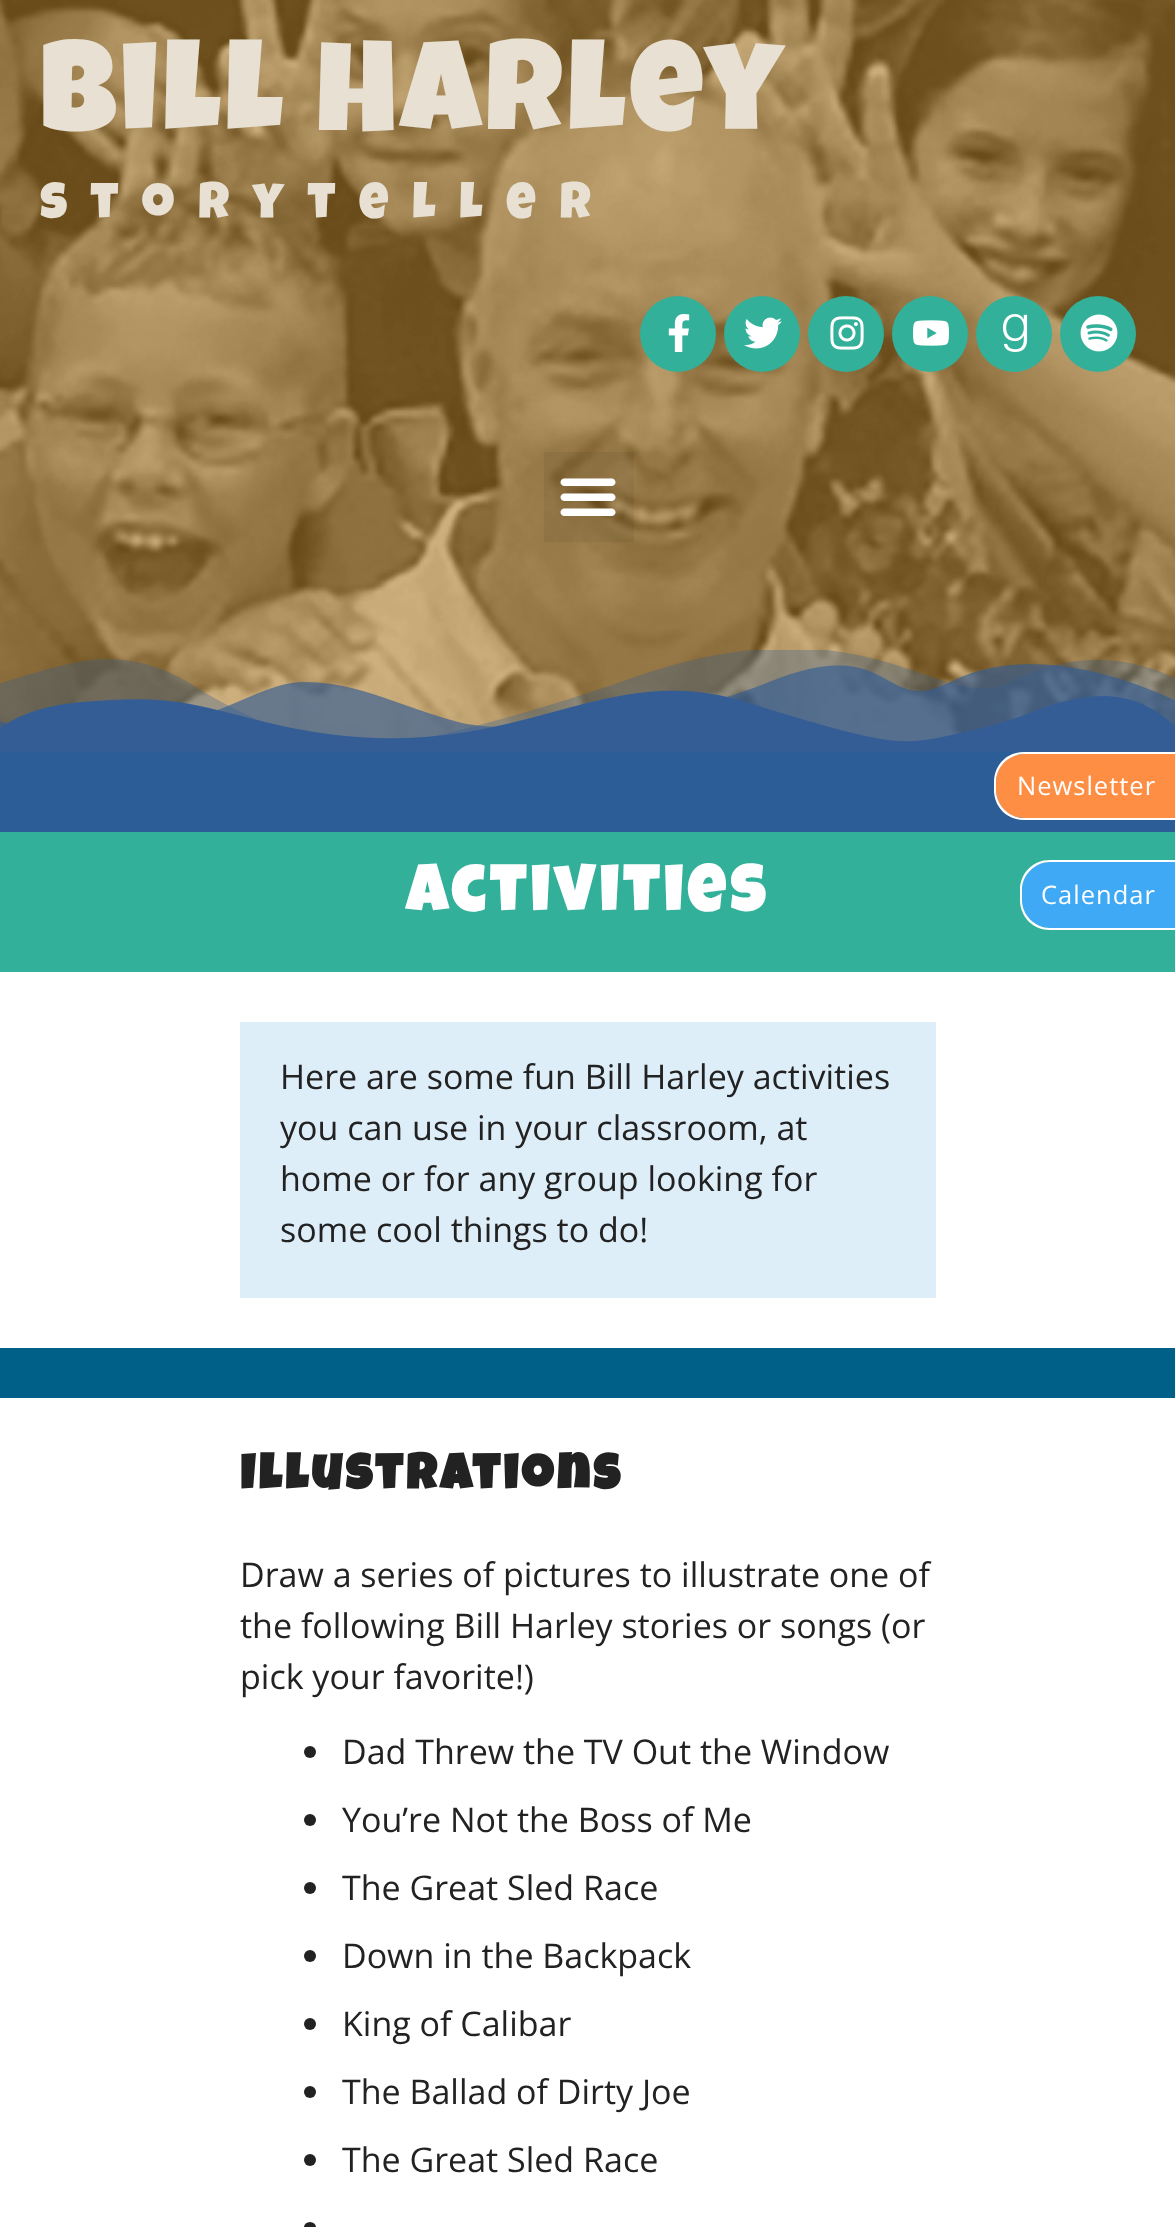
<svg xmlns="http://www.w3.org/2000/svg" width="1175" height="2227" viewBox="0 0 1175 2227">
  <rect width="100%" height="100%" fill="rgb(44,93,150)"/>
  <image x="0" y="0" width="1175" height="742" href="pic1.png"/>
  <text x="40" y="130" font-family="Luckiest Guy" font-size="128" letter-spacing="4.4" fill="rgb(231,224,211)">Bill Harley</text>
  <text x="40" y="218" font-family="Luckiest Guy" font-size="51" letter-spacing="24" fill="rgb(231,224,211)">storyteller</text>
  <circle cx="678" cy="334" r="38" fill="rgb(50,176,153)"/>
  <image x="668" y="314" width="22" height="38" href="pic2.png"/>
  <circle cx="762" cy="334" r="38" fill="rgb(50,176,153)"/>
  <image x="744" y="317" width="38" height="32" href="pic3.png"/>
  <circle cx="846" cy="334" r="38" fill="rgb(50,176,153)"/>
  <image x="830" y="316" width="34" height="34" href="pic4.png"/>
  <circle cx="930" cy="334" r="38" fill="rgb(50,176,153)"/>
  <image x="913" y="320" width="36" height="26" href="pic5.png"/>
  <circle cx="1014" cy="334" r="38" fill="rgb(50,176,153)"/>
  <image x="1002" y="314" width="26" height="38" href="pic6.png"/>
  <circle cx="1098" cy="334" r="38" fill="rgb(50,176,153)"/>
  <image x="1080" y="314" width="38" height="38" href="pic7.png"/>
  <rect x="544" y="452" width="90" height="90" fill="rgba(0,0,0,0.05)"/>
  <image x="560" y="478" width="56" height="38" href="pic8.png"/>
  <image x="0" y="650" width="1175" height="102" href="pic9.png"/>
  <path d="M1024 754H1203V818H1024C1008.5 818 996 805.5 996 790V782C996 766.5 1008.5 754 1024 754Z" fill="rgb(255,142,69)"/>
  <path d="M1024 752H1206V820H1024C1007 820 994 807 994 790V782C994 765 1007 752 1024 752ZM1024 754H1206V818H1024C1009 818 996 805 996 790V782C996 767 1009 754 1024 754Z" fill="rgb(255,255,255)" fill-rule="evenodd"/>
  <text x="1017" y="795" font-family="Open Sans" font-size="25.5" letter-spacing="1" fill="rgb(255,255,255)">Newsletter</text>
  <rect x="0" y="832" width="1175" height="140" fill="rgb(50,176,153)"/>
  <path d="M1050 862H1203V928H1050C1034.5 928 1022 915.5 1022 900V890C1022 874.5 1034.5 862 1050 862Z" fill="rgb(63,169,245)"/>
  <path d="M1050 860H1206V930H1050C1033 930 1020 917 1020 900V890C1020 873 1033 860 1050 860ZM1050 862H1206V928H1050C1035 928 1022 915 1022 900V890C1022 875 1035 862 1050 862Z" fill="rgb(255,255,255)" fill-rule="evenodd"/>
  <text x="1041" y="904" font-family="Open Sans" font-size="25.5" letter-spacing="1" fill="rgb(255,255,255)">Calendar</text>
  <rect x="0" y="972" width="1175" height="1255" fill="rgb(255,255,255)"/>
  <text x="406" y="911" font-family="Luckiest Guy" font-size="68" letter-spacing="3.6" fill="rgb(255,255,255)">Activities</text>
  <rect x="240" y="1022" width="696" height="276" fill="rgb(222,238,248)"/>
  <g font-family="Open Sans" font-size="34" fill="rgb(34,34,34)">
    <text>
      <tspan x="280" y="1089">Here are some fun Bill Harley activities</tspan>
      <tspan x="280" y="1140">you can use in your classroom, at</tspan>
      <tspan x="280" y="1191">home or for any group looking for</tspan>
      <tspan x="280" y="1242">some cool things to do!</tspan>
    </text>
  </g>
  <rect x="0" y="1348" width="1175" height="50" fill="rgb(0,96,136)"/>
  <text x="240" y="1489" font-family="Luckiest Guy" font-size="50" font-weight="bold" letter-spacing="3.75" fill="rgb(34,34,34)">Illustrations</text>
  <g font-family="Open Sans" font-size="34" fill="rgb(34,34,34)">
    <text>
      <tspan x="240" y="1587">Draw a series of pictures to illustrate one of</tspan>
      <tspan x="240" y="1638">the following Bill Harley stories or songs (or</tspan>
      <tspan x="240" y="1689">pick your favorite!)</tspan>
    </text>
  </g>
  <circle cx="310" cy="1752" r="6" fill="rgb(34,34,34)"/>
  <text x="342" y="1764" font-family="Open Sans" font-size="34" fill="rgb(34,34,34)">Dad Threw the TV Out the Window</text>
  <circle cx="310" cy="1820" r="6" fill="rgb(34,34,34)"/>
  <text x="342" y="1832" font-family="Open Sans" font-size="34" fill="rgb(34,34,34)">You’re Not the Boss of Me</text>
  <circle cx="310" cy="1888" r="6" fill="rgb(34,34,34)"/>
  <text x="342" y="1900" font-family="Open Sans" font-size="34" fill="rgb(34,34,34)">The Great Sled Race</text>
  <circle cx="310" cy="1956" r="6" fill="rgb(34,34,34)"/>
  <text x="342" y="1968" font-family="Open Sans" font-size="34" fill="rgb(34,34,34)">Down in the Backpack</text>
  <circle cx="310" cy="2024" r="6" fill="rgb(34,34,34)"/>
  <text x="342" y="2036" font-family="Open Sans" font-size="34" fill="rgb(34,34,34)">King of Calibar</text>
  <circle cx="310" cy="2092" r="6" fill="rgb(34,34,34)"/>
  <text x="342" y="2104" font-family="Open Sans" font-size="34" fill="rgb(34,34,34)">The Ballad of Dirty Joe</text>
  <circle cx="310" cy="2160" r="6" fill="rgb(34,34,34)"/>
  <text x="342" y="2172" font-family="Open Sans" font-size="34" fill="rgb(34,34,34)">The Great Sled Race</text>
  <rect x="304" y="2222" width="12" height="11" rx="6" fill="rgb(34,34,34)"/>
</svg>
